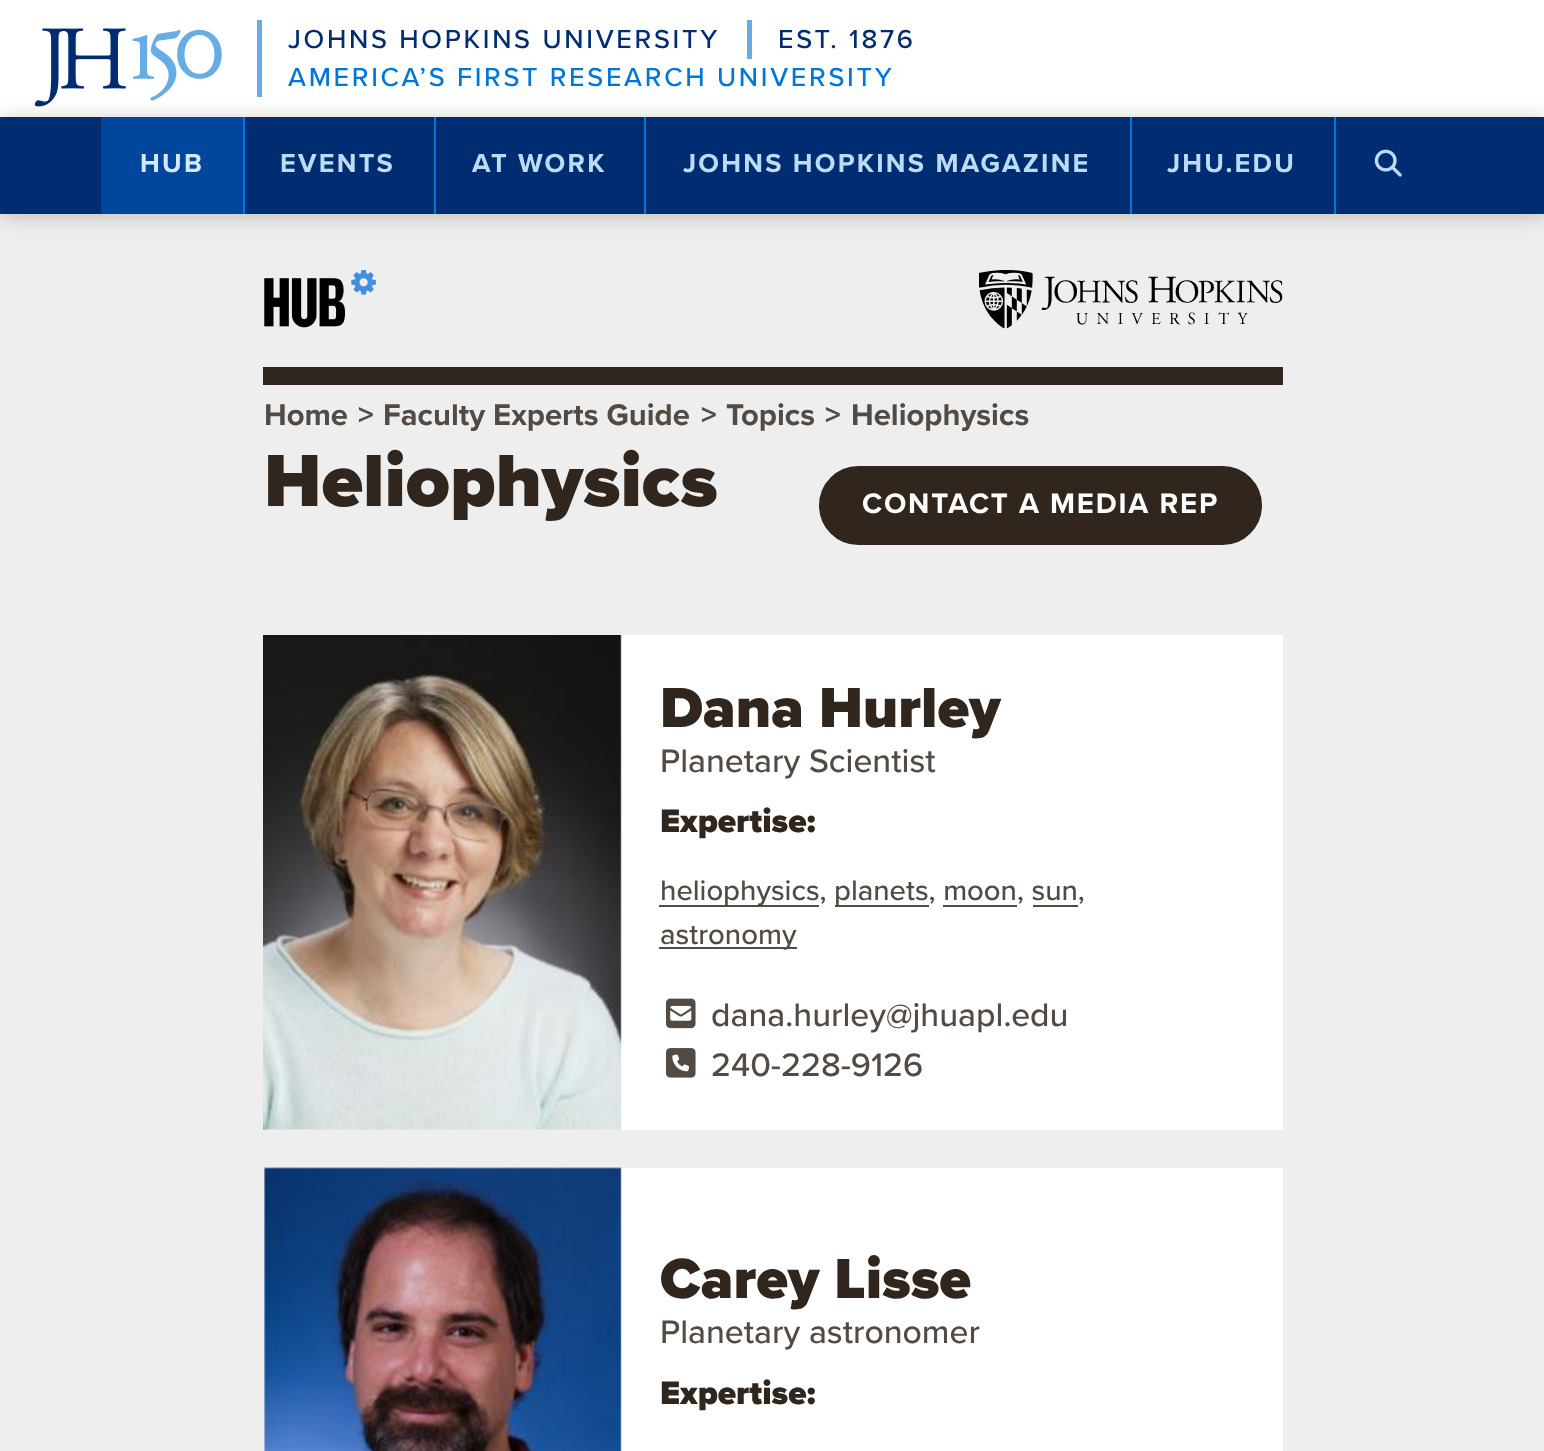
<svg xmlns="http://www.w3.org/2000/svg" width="1544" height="1451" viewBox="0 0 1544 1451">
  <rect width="100%" height="100%" fill="rgb(239,238,238)"/>
  <rect x="0" y="0" width="1544" height="117" fill="rgb(255,255,255)"/>
  <image x="34" y="28" width="188" height="79" href="pic1.png"/>
  <rect x="257" y="20" width="5" height="77" fill="rgb(104,172,229)"/>
  <text x="288" y="48" font-family="Proxima Nova" font-size="27" font-weight="500" letter-spacing="2.7" fill="rgb(0,45,114)">JOHNS HOPKINS UNIVERSITY</text>
  <rect x="747" y="20" width="5" height="39" fill="rgb(104,172,229)"/>
  <text x="778" y="48" font-family="Proxima Nova" font-size="27" font-weight="500" letter-spacing="2.7" fill="rgb(0,45,114)">EST. 1876</text>
  <text x="288" y="86" font-family="Proxima Nova" font-size="27" font-weight="500" letter-spacing="2.7" fill="rgb(0,119,216)">AMERICA’S FIRST RESEARCH UNIVERSITY</text>
  <rect x="0" y="119" width="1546" height="97" fill="rgba(49,38,29,0.25)" filter="blur(10px)"/>
  <rect x="0" y="117" width="1544" height="97" fill="rgb(0,45,114)"/>
  <rect x="101" y="117" width="142" height="97" fill="rgb(0,70,156)"/>
  <text x="140" y="172" font-family="Proxima Nova" font-size="27" font-weight="bold" letter-spacing="2.25" fill="rgb(214,232,248)">HUB</text>
  <rect x="243" y="117" width="2" height="97" fill="rgb(0,119,216)"/>
  <text x="280" y="172" font-family="Proxima Nova" font-size="27" font-weight="bold" letter-spacing="2.25" fill="rgb(189,219,244)">EVENTS</text>
  <rect x="434" y="117" width="2" height="97" fill="rgb(0,119,216)"/>
  <text x="472" y="172" font-family="Proxima Nova" font-size="27" font-weight="bold" letter-spacing="2.25" fill="rgb(189,219,244)">AT WORK</text>
  <rect x="644" y="117" width="2" height="97" fill="rgb(0,119,216)"/>
  <text x="683" y="172" font-family="Proxima Nova" font-size="27" font-weight="bold" letter-spacing="2.25" fill="rgb(189,219,244)">JOHNS HOPKINS MAGAZINE</text>
  <rect x="1130" y="117" width="2" height="97" fill="rgb(0,119,216)"/>
  <text x="1167" y="172" font-family="Proxima Nova" font-size="27" font-weight="bold" letter-spacing="2.25" fill="rgb(189,219,244)">JHU.EDU</text>
  <rect x="1334" y="117" width="2" height="97" fill="rgb(0,119,216)"/>
  <image x="1374" y="149" width="28" height="28" href="pic2.png"/>
  <rect x="263" y="367" width="1020" height="18" fill="rgb(49,38,29)"/>
  <image x="264" y="270" width="112" height="58" href="pic3.png"/>
  <image x="979" y="270" width="304" height="59" href="pic4.png"/>
  <g font-family="Proxima Nova" font-size="31" font-weight="bold" fill="rgb(83,74,67)">
    <text x="264" y="425">Home</text>
    <text x="358" y="425">&gt;</text>
    <text x="383" y="425">Faculty Experts Guide</text>
    <text x="701" y="425">&gt;</text>
    <text x="726" y="425">Topics</text>
    <text x="825" y="425">&gt;</text>
    <text x="851" y="425">Heliophysics</text>
  </g>
  <text x="264" y="506" font-family="Proxima Nova" font-size="76.5" font-weight="900" fill="rgb(49,38,29)">Heliophysics</text>
  <rect x="821.5" y="468.5" width="438" height="74" rx="37" fill="rgb(49,38,29)" stroke="rgb(49,38,29)" stroke-width="5"/>
  <text x="862" y="513" font-family="Proxima Nova" font-size="29.25" font-weight="bold" letter-spacing="1.8" fill="rgb(255,255,255)">CONTACT A MEDIA REP</text>
  <rect x="621" y="635" width="662" height="495" fill="rgb(255,255,255)"/>
  <image x="263" y="635" width="359" height="495" href="pic5.png"/>
  <text x="660" y="727" font-family="Proxima Nova" font-size="58.5" font-weight="900" fill="rgb(49,38,29)">Dana Hurley</text>
  <text x="660" y="772" font-family="Proxima Nova" font-size="33.75" font-weight="500" fill="rgb(83,74,67)">Planetary Scientist</text>
  <text x="660" y="832" font-family="Proxima Nova" font-size="33.75" font-weight="900" fill="rgb(49,38,29)">Expertise:</text>
  <rect x="659" y="905" width="160" height="2" fill="rgb(83,74,67)"/>
  <text x="660" y="900" font-family="Proxima Nova" font-size="29.25" font-weight="500" fill="rgb(83,74,67)">heliophysics,</text>
  <rect x="835" y="905" width="94" height="2" fill="rgb(83,74,67)"/>
  <text x="834" y="900" font-family="Proxima Nova" font-size="29.25" font-weight="500" fill="rgb(83,74,67)">planets, moon, sun,</text>
  <rect x="943" y="905" width="74" height="2" fill="rgb(83,74,67)"/>
  <rect x="1033" y="905" width="45" height="2" fill="rgb(83,74,67)"/>
  <rect x="659" y="947" width="138" height="2" fill="rgb(83,74,67)"/>
  <text x="660" y="944" font-family="Proxima Nova" font-size="29.25" font-weight="500" fill="rgb(83,74,67)">astronomy</text>
  <image x="666" y="998" width="30" height="31" href="pic6.png"/>
  <text x="711" y="1026" font-family="Proxima Nova" font-size="33.75" font-weight="500" fill="rgb(83,74,67)">dana.hurley@jhuapl.edu</text>
  <image x="666" y="1048" width="30" height="30" href="pic7.png"/>
  <text x="711" y="1076" font-family="Proxima Nova" font-size="33.75" font-weight="500" fill="rgb(83,74,67)">240-228-9126</text>
  <rect x="621" y="1168" width="662" height="283" fill="rgb(255,255,255)"/>
  <image x="264" y="1167" width="358" height="284" href="pic8.png"/>
  <text x="660" y="1298" font-family="Proxima Nova" font-size="58.5" font-weight="900" fill="rgb(49,38,29)">Carey Lisse</text>
  <text x="660" y="1343" font-family="Proxima Nova" font-size="33.75" font-weight="500" fill="rgb(83,74,67)">Planetary astronomer</text>
  <text x="660" y="1404" font-family="Proxima Nova" font-size="33.75" font-weight="900" fill="rgb(49,38,29)">Expertise:</text>
</svg>
